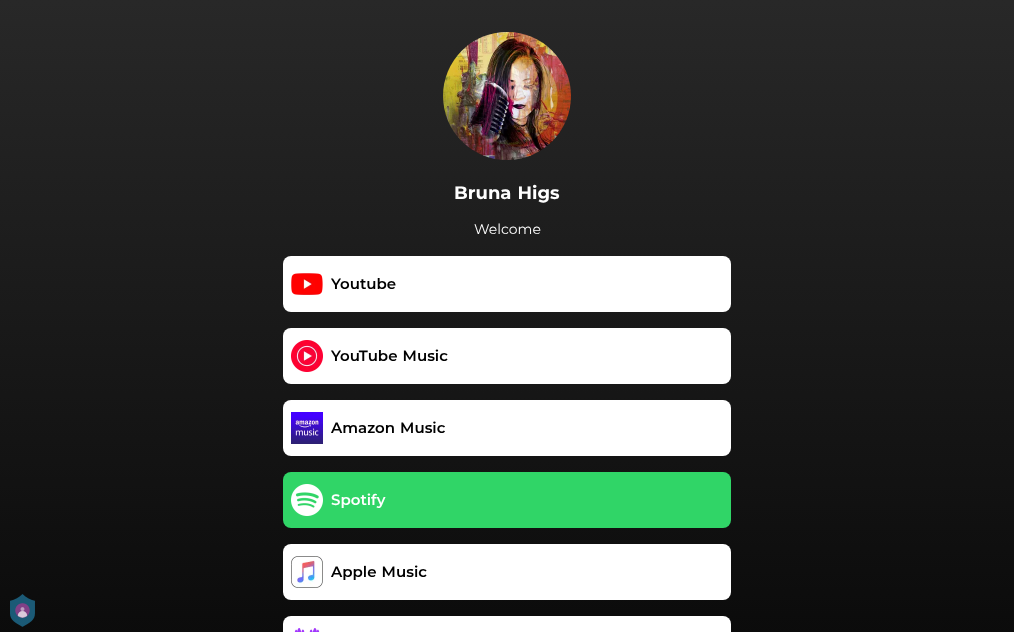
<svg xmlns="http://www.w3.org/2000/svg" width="1014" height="632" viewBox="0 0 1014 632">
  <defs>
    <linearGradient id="g1" gradientUnits="userSpaceOnUse" x1="507" y1="0" x2="507" y2="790"><stop offset="0" stop-color="rgb(40,40,40)"/><stop offset="1" stop-color="rgb(4,4,4)"/></linearGradient>
  </defs>
  <rect width="100%" height="100%" fill="rgb(255,255,255)"/>
  <rect x="0" y="0" width="1014" height="632" fill="url(#g1)"/>
  <image x="443" y="32" width="128" height="128" href="pic1.png"/>
  <text x="454" y="199" word-spacing="1" font-family="Montserrat" font-size="18" font-weight="bold" fill="rgb(255,255,255)">Bruna Higs</text>
  <text x="474" y="234" font-family="Montserrat" font-size="14" fill="rgb(255,255,255)">Welcome</text>
  <rect x="283" y="256" width="448" height="56" rx="8" fill="rgb(255,255,255)"/>
  <image x="291" y="273" width="32" height="22" href="pic2.png"/>
  <text x="331" y="289" font-family="Montserrat" font-size="15" font-weight="600" fill="rgb(0,0,0)">Youtube</text>
  <rect x="283" y="328" width="448" height="56" rx="8" fill="rgb(255,255,255)"/>
  <image x="291" y="340" width="32" height="32" href="pic3.png"/>
  <text x="331" y="361" word-spacing="1" font-family="Montserrat" font-size="15" font-weight="600" fill="rgb(0,0,0)">YouTube Music</text>
  <rect x="283" y="400" width="448" height="56" rx="8" fill="rgb(255,255,255)"/>
  <image x="291" y="412" width="32" height="32" href="pic4.png"/>
  <text x="331" y="433" word-spacing="1" font-family="Montserrat" font-size="15" font-weight="600" fill="rgb(0,0,0)">Amazon Music</text>
  <rect x="283" y="472" width="448" height="56" rx="8" fill="rgb(48,213,103)"/>
  <image x="291" y="484" width="32" height="32" href="pic5.png"/>
  <text x="331" y="505" font-family="Montserrat" font-size="15" font-weight="600" fill="rgb(255,255,255)">Spotify</text>
  <rect x="283" y="544" width="448" height="56" rx="8" fill="rgb(255,255,255)"/>
  <image x="291" y="556" width="32" height="32" href="pic6.png"/>
  <text x="331" y="577" word-spacing="1" font-family="Montserrat" font-size="15" font-weight="600" fill="rgb(0,0,0)">Apple Music</text>
  <rect x="283" y="616" width="448" height="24" rx="8" fill="rgb(255,255,255)"/>
  <image x="294" y="628" width="26" height="4" href="pic7.png"/>
  <image x="10" y="594" width="25" height="33" href="pic8.png"/>
</svg>
